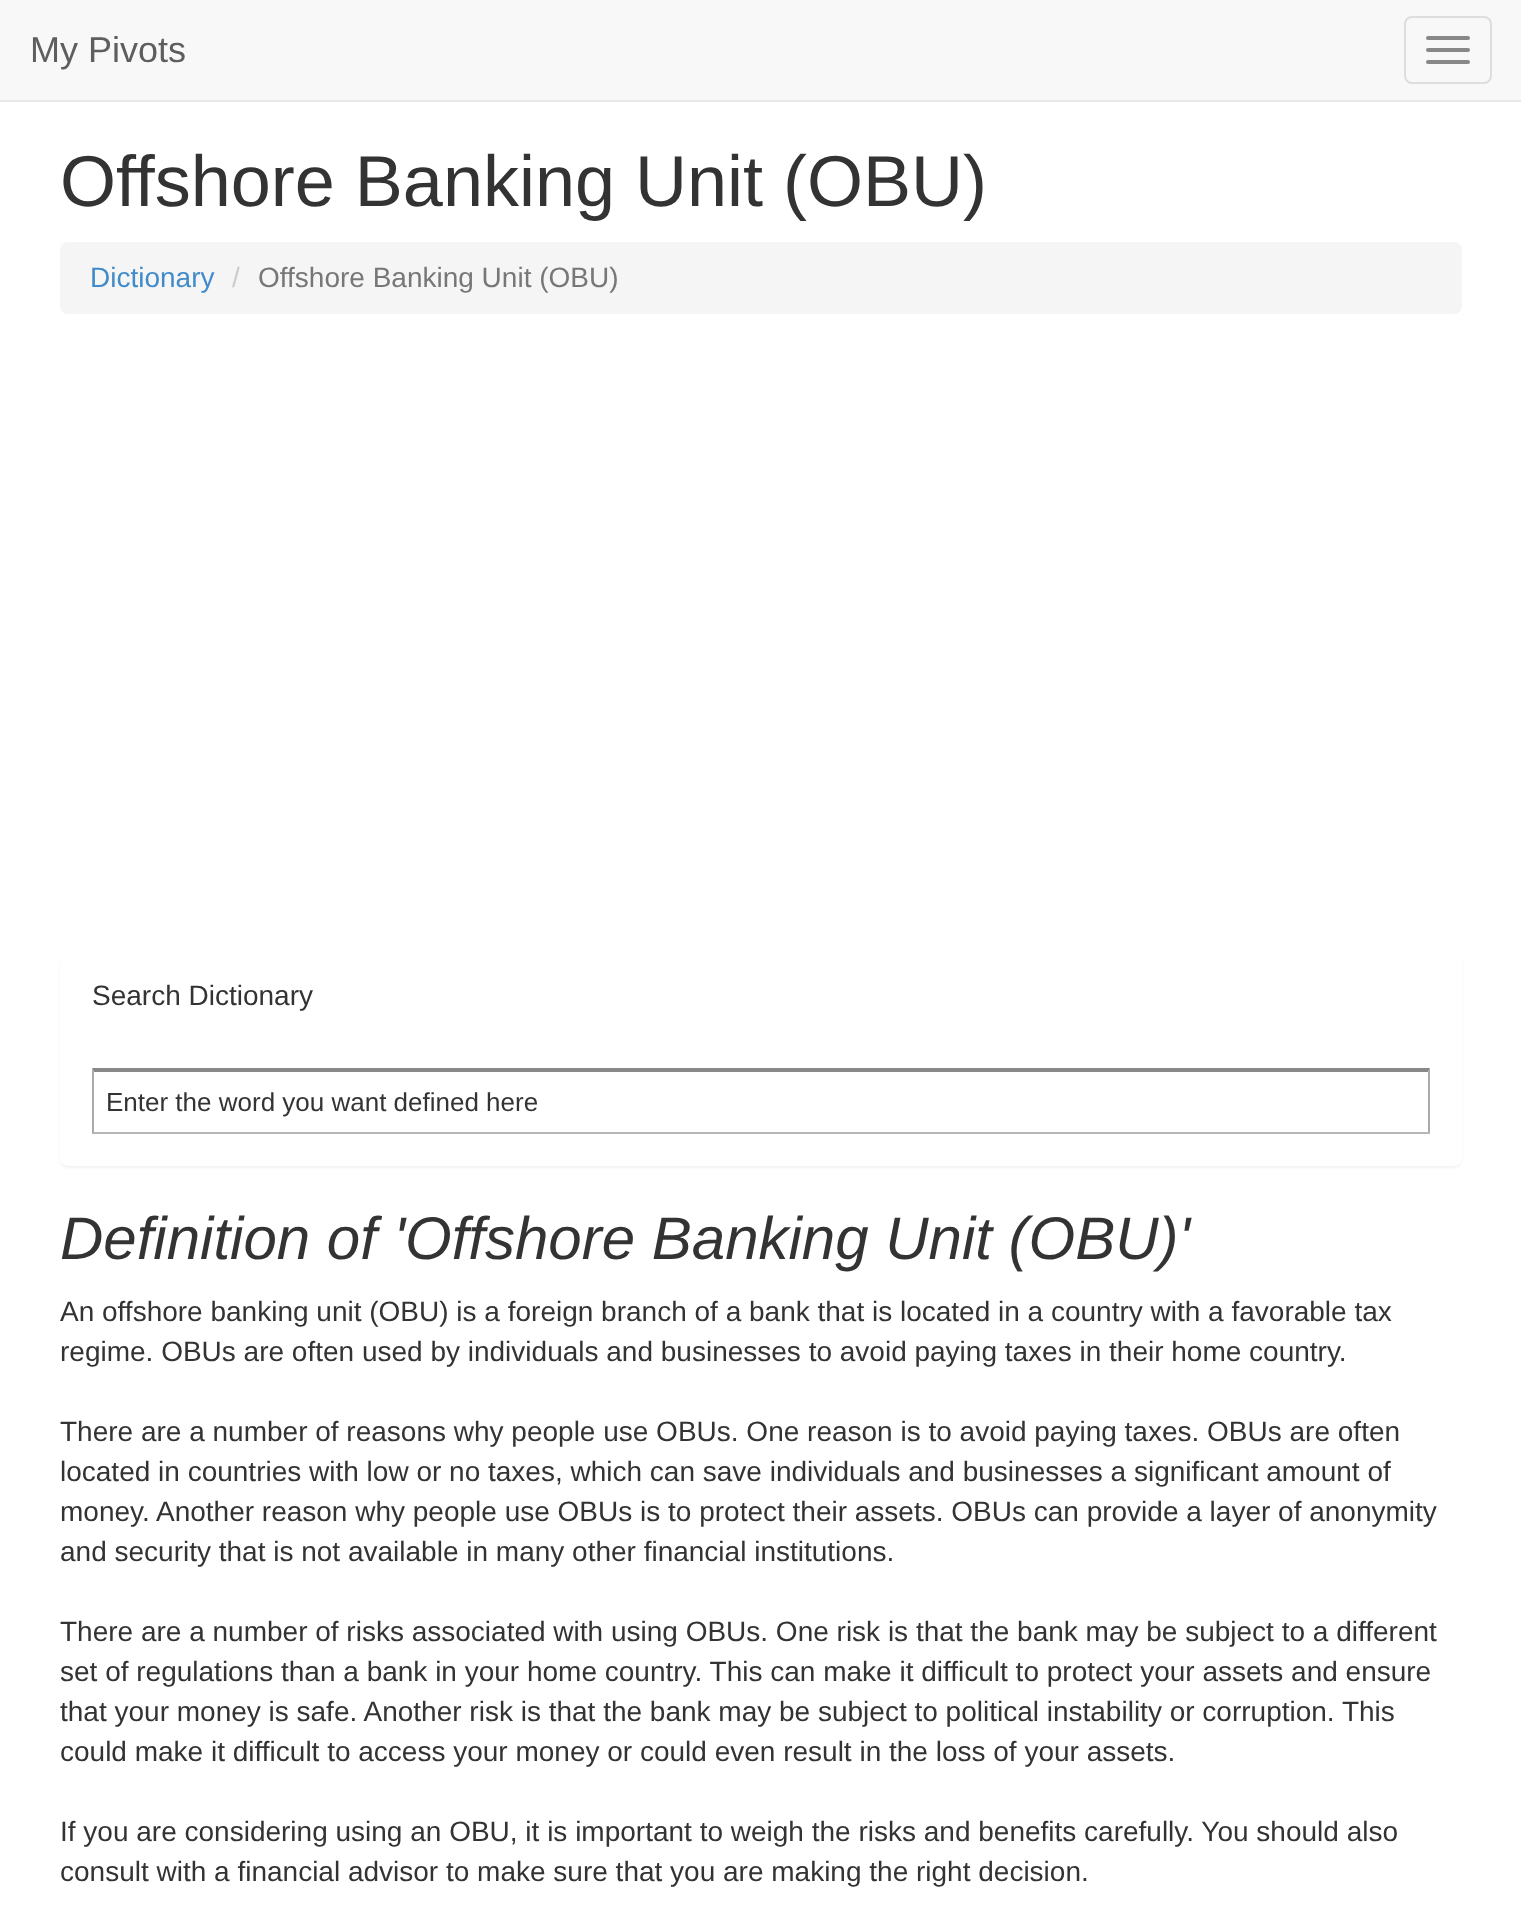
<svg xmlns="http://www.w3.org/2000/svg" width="1521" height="1921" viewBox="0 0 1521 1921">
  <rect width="100%" height="100%" fill="rgb(255,255,255)"/>
  <rect x="0" y="0" width="1521" height="100" fill="rgb(248,248,248)"/>
  <rect x="0" y="100" width="1521" height="2" fill="rgb(231,231,231)"/>
  <text x="30" y="62" font-family="Liberation Sans" font-size="36" fill="rgb(94,94,94)">My Pivots</text>
  <rect x="1405" y="17" width="86" height="66" rx="7" fill="none" stroke="rgb(221,221,221)" stroke-width="2"/>
  <rect x="1426" y="36" width="44" height="4" rx="2" fill="rgb(136,136,136)"/>
  <rect x="1426" y="48" width="44" height="4" rx="2" fill="rgb(136,136,136)"/>
  <rect x="1426" y="60" width="44" height="4" rx="2" fill="rgb(136,136,136)"/>
  <text x="60" y="206" font-family="Liberation Sans" font-size="72" fill="rgb(51,51,51)">Offshore Banking Unit (OBU)</text>
  <rect x="60" y="242" width="1402" height="72" rx="8" fill="rgb(245,245,245)"/>
  <text x="90" y="287" font-family="Liberation Sans" font-size="28" fill="rgb(66,139,202)">Dictionary</text>
  <text x="232" y="287" font-family="Liberation Sans" font-size="28" fill="rgb(204,204,204)">/</text>
  <text x="258" y="287" font-family="Liberation Sans" font-size="28" fill="rgb(119,119,119)">Offshore Banking Unit (OBU)</text>
  <rect x="60" y="956" width="1402" height="212" rx="8" fill="rgba(0,0,0,0.05)" filter="blur(1px)"/>
  <rect x="60" y="954" width="1402" height="212" rx="8" fill="rgb(255,255,255)"/>
  <text x="92" y="1005" font-family="Liberation Sans" font-size="28" fill="rgb(51,51,51)">Search Dictionary</text>
  <path d="M92 1068H1430L1428 1072H94Z" fill="rgb(136,136,136)"/>
  <path d="M1430 1068V1134L1428 1132V1072Z" fill="rgb(170,170,170)"/>
  <rect x="92" y="1132" width="1338" height="2" fill="rgb(182,182,182)"/>
  <path d="M92 1134V1068L94 1072V1132Z" fill="rgb(170,170,170)"/>
  <text x="106" y="1111" font-family="Liberation Sans" font-size="26" fill="rgb(51,51,51)">Enter the word you want defined here</text>
  <text x="60" y="1259" font-family="Liberation Sans" font-size="60" font-style="italic" fill="rgb(51,51,51)">Definition of 'Offshore Banking Unit (OBU)'</text>
  <g font-family="Liberation Sans" font-size="28" fill="rgb(51,51,51)">
    <text>
      <tspan x="60" y="1321">An offshore banking unit (OBU) is a foreign branch of a bank that is located in a country with a favorable tax</tspan>
      <tspan x="60" y="1361">regime. OBUs are often used by individuals and businesses to avoid paying taxes in their home country.</tspan>
    </text>
    <text>
      <tspan x="60" y="1441">There are a number of reasons why people use OBUs. One reason is to avoid paying taxes. OBUs are often</tspan>
      <tspan x="60" y="1481">located in countries with low or no taxes, which can save individuals and businesses a significant amount of</tspan>
      <tspan x="60" y="1521">money. Another reason why people use OBUs is to protect their assets. OBUs can provide a layer of anonymity</tspan>
      <tspan x="60" y="1561">and security that is not available in many other financial institutions.</tspan>
    </text>
    <text>
      <tspan x="60" y="1641">There are a number of risks associated with using OBUs. One risk is that the bank may be subject to a different</tspan>
      <tspan x="60" y="1681">set of regulations than a bank in your home country. This can make it difficult to protect your assets and ensure</tspan>
      <tspan x="60" y="1721">that your money is safe. Another risk is that the bank may be subject to political instability or corruption. This</tspan>
      <tspan x="60" y="1761">could make it difficult to access your money or could even result in the loss of your assets.</tspan>
    </text>
    <text>
      <tspan x="60" y="1841">If you are considering using an OBU, it is important to weigh the risks and benefits carefully. You should also</tspan>
      <tspan x="60" y="1881">consult with a financial advisor to make sure that you are making the right decision.</tspan>
    </text>
  </g>
</svg>
